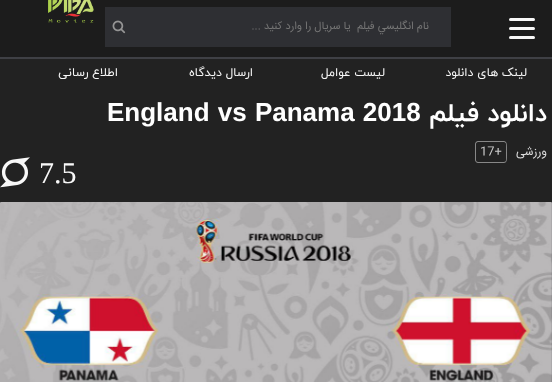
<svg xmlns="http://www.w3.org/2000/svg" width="552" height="382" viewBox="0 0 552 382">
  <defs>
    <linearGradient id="g1" gradientUnits="userSpaceOnUse" x1="276" y1="59" x2="276" y2="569"><stop offset="0" stop-color="rgb(40,42,45)"/><stop offset="1" stop-color="rgb(44,44,56)"/></linearGradient>
  </defs>
  <rect width="100%" height="100%" fill="rgb(28,28,28)"/>
  <rect x="509" y="18" width="26" height="3" rx="1.5" fill="rgb(248,248,248)"/>
  <rect x="509" y="27" width="26" height="3" rx="1.5" fill="rgb(248,248,248)"/>
  <rect x="509" y="36" width="26" height="3" rx="1.5" fill="rgb(248,248,248)"/>
  <rect x="0" y="57" width="552" height="2" fill="rgb(63,64,69)"/>
  <image x="48" y="0" width="46" height="23" href="pic1.png"/>
  <rect x="105" y="7" width="346" height="40" fill="rgb(46,47,51)"/>
  <image x="112" y="20" width="14" height="14" href="pic2.png"/>
  <text x="429" y="29" font-family="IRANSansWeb" font-size="11" direction="rtl" fill="rgb(117,117,117)" xml:space="preserve">نام انگليسي فيلم  يا سريال را وارد کنيد ...</text>
  <rect x="0" y="202" width="552" height="180" fill="url(#g1)"/>
  <rect x="0" y="59" width="552" height="143" fill="rgb(34,34,34)"/>
  <g font-family="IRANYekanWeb" font-size="12" direction="rtl" fill="rgb(248,248,248)">
    <text x="527" y="76">لینک های دانلود</text>
    <text x="385" y="76">لیست عوامل</text>
    <text x="253" y="76">ارسال دیدگاه</text>
    <text x="118" y="76">اطلاع رسانی</text>
  </g>
  <text x="547" y="121" font-family="IRANYekanWeb" font-size="26" font-weight="bold" direction="rtl" fill="rgb(255,255,255)">دانلود فیلم</text>
  <text x="107" y="121" word-spacing="1" font-family="Liberation Sans" font-size="26" font-weight="bold" fill="rgb(255,255,255)">England vs Panama 2018</text>
  <text x="547" y="155" font-family="IRANSansWeb" font-size="12" direction="rtl" fill="rgb(221,221,221)">ورزشی</text>
  <path d="M478 141H495V163H478C476.5 163 475 161.5 475 160V144C475 142.5 476.5 141 478 141ZM478 142H495V162H478C477 162 476 161 476 160V144C476 143 477 142 478 142ZM495 141C507.5 141 507 139 507 152C507 165 507.5 163 495 163ZM495 142H504C505 142 506 143 506 144V160C506 161 505 162 504 162H495Z" fill="rgb(136,136,136)" fill-rule="evenodd"/>
  <text x="480" y="155" font-family="IRANSansWeb" font-size="12" fill="rgb(204,204,204)">17+</text>
  <text x="39" y="183" font-family="Liberation Serif" font-size="30" fill="rgb(248,248,248)">7.5</text>
  <image x="0" y="157" width="30" height="31" href="pic3.png"/>
  <image x="0" y="202" width="552" height="180" href="pic4.png"/>
</svg>
